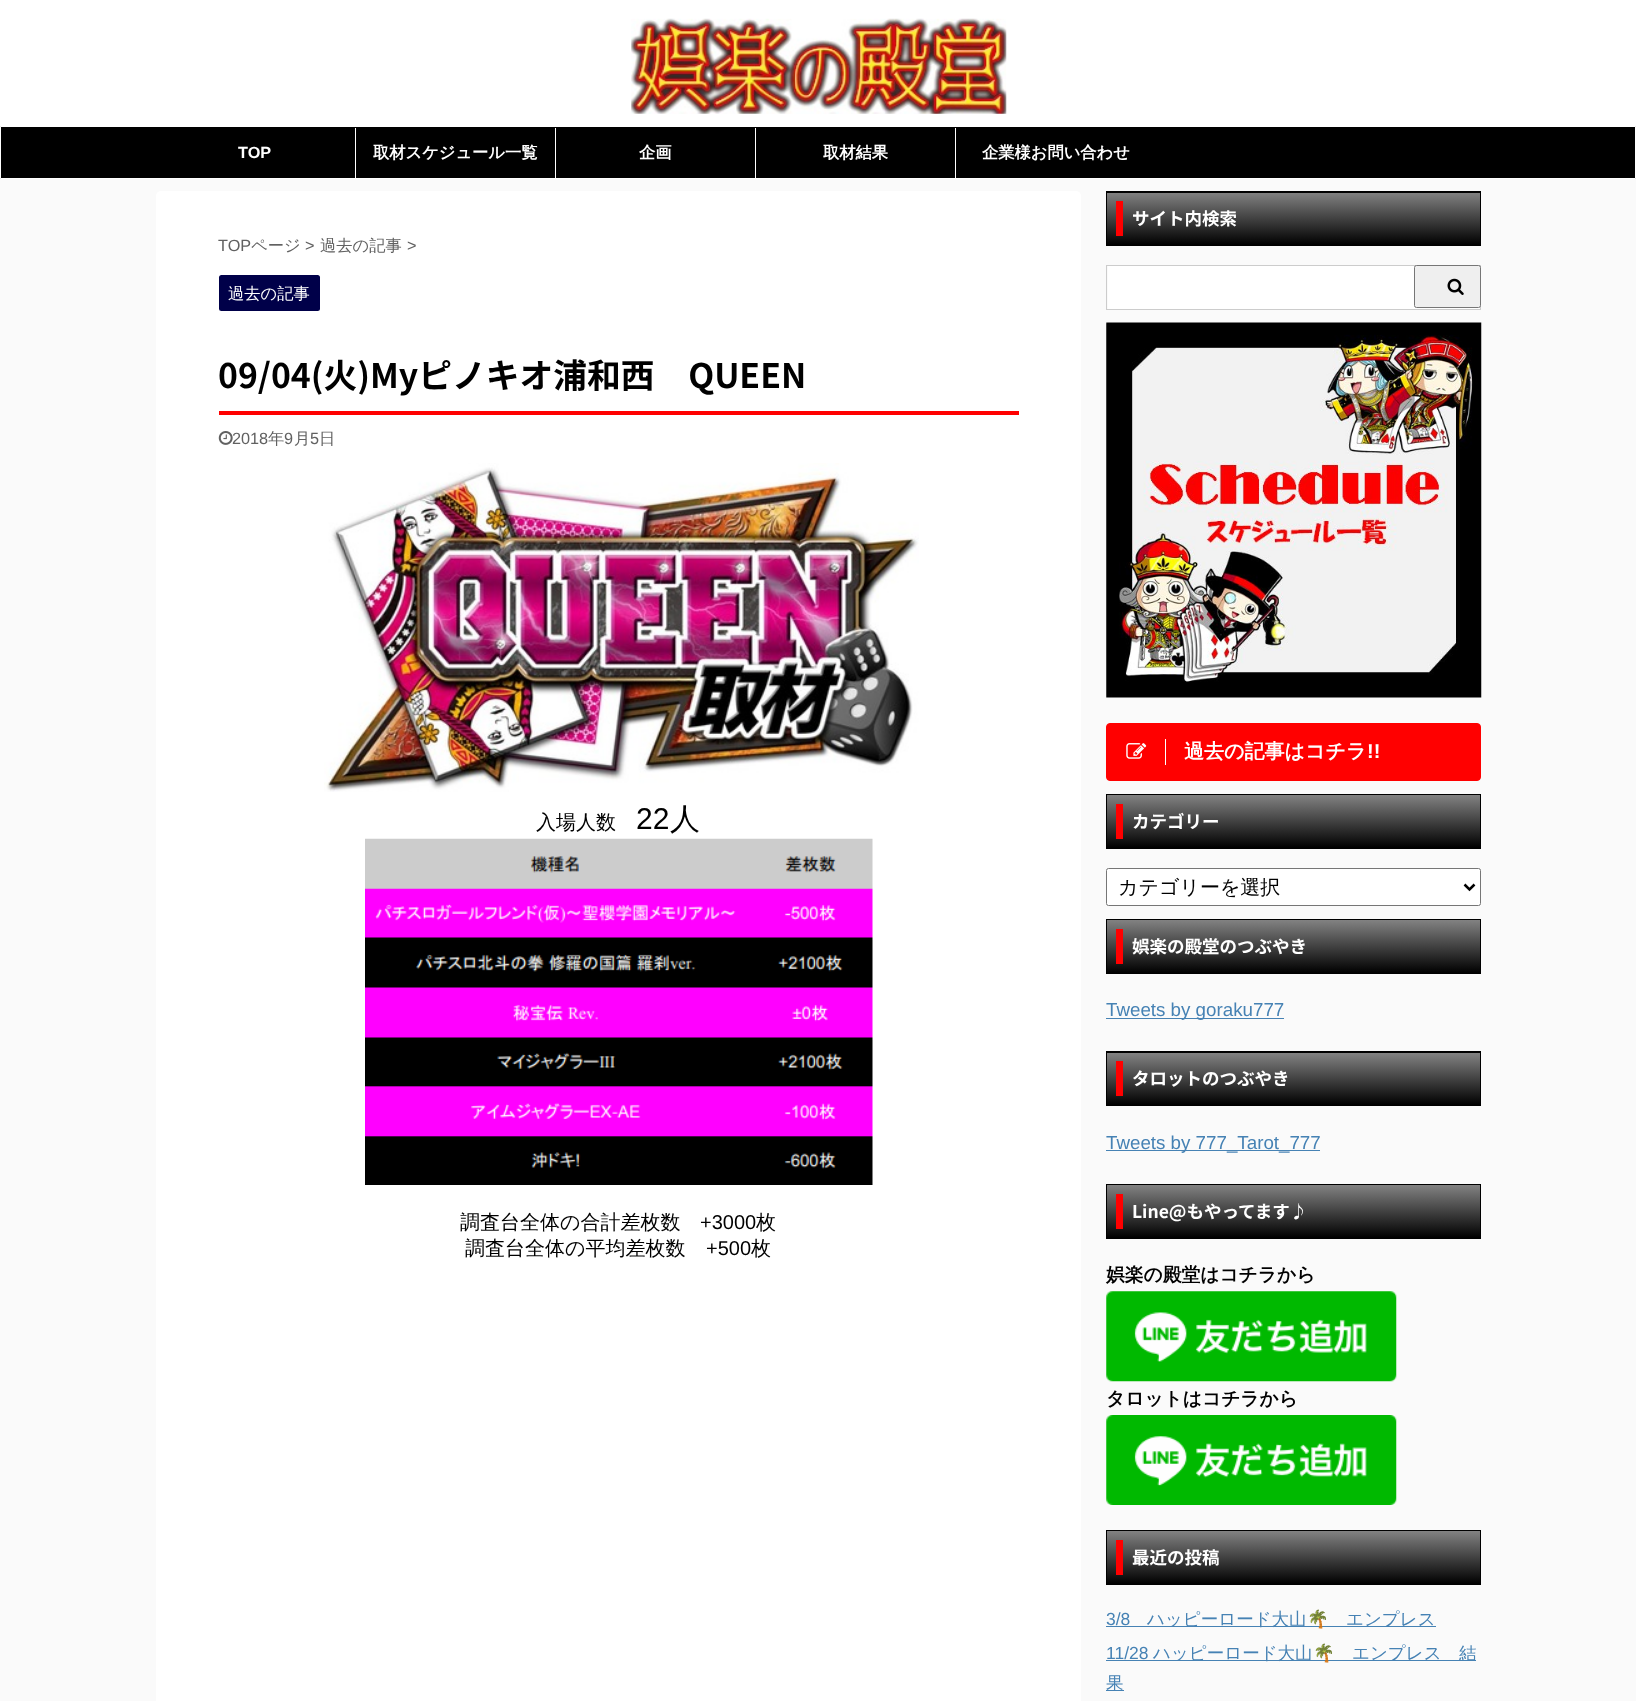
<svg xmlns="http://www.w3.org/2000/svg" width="1636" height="1701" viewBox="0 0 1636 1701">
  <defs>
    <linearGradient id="g1" gradientUnits="userSpaceOnUse" x1="1294" y1="140" x2="1294" y2="193"><stop offset="0" stop-color="rgb(130,130,130)"/><stop offset="1" stop-color="rgb(0,0,0)"/></linearGradient>
    <linearGradient id="g2" gradientUnits="userSpaceOnUse" x1="1294" y1="192" x2="1294" y2="245"><stop offset="0" stop-color="rgb(130,130,130)"/><stop offset="1" stop-color="rgb(0,0,0)"/></linearGradient>
    <linearGradient id="g3" gradientUnits="userSpaceOnUse" x1="1294" y1="795" x2="1294" y2="848"><stop offset="0" stop-color="rgb(130,130,130)"/><stop offset="1" stop-color="rgb(0,0,0)"/></linearGradient>
    <linearGradient id="g4" gradientUnits="userSpaceOnUse" x1="1294" y1="920" x2="1294" y2="973"><stop offset="0" stop-color="rgb(130,130,130)"/><stop offset="1" stop-color="rgb(0,0,0)"/></linearGradient>
    <linearGradient id="g5" gradientUnits="userSpaceOnUse" x1="1294" y1="1000" x2="1294" y2="1053"><stop offset="0" stop-color="rgb(130,130,130)"/><stop offset="1" stop-color="rgb(0,0,0)"/></linearGradient>
    <linearGradient id="g6" gradientUnits="userSpaceOnUse" x1="1294" y1="1053" x2="1294" y2="1105"><stop offset="0" stop-color="rgb(130,130,130)"/><stop offset="1" stop-color="rgb(0,0,0)"/></linearGradient>
    <linearGradient id="g7" gradientUnits="userSpaceOnUse" x1="1294" y1="1185" x2="1294" y2="1238"><stop offset="0" stop-color="rgb(130,130,130)"/><stop offset="1" stop-color="rgb(0,0,0)"/></linearGradient>
    <linearGradient id="g8" gradientUnits="userSpaceOnUse" x1="1294" y1="1531" x2="1294" y2="1584"><stop offset="0" stop-color="rgb(130,130,130)"/><stop offset="1" stop-color="rgb(0,0,0)"/></linearGradient>
  </defs>
  <rect width="100%" height="100%" fill="rgb(250,250,250)"/>
  <rect x="0" y="0" width="1636" height="126" fill="rgb(255,255,255)"/>
  <image x="631" y="18" width="376" height="96" href="pic1.png"/>
  <rect x="0.5" y="126.5" width="1635" height="52" rx="0.5" fill="rgb(0,0,0)" stroke="rgb(255,255,255)"/>
  <rect x="355" y="128" width="1" height="50" fill="rgb(255,255,255)"/>
  <text x="238" y="158" font-family="Liberation Sans" font-size="16.25" font-weight="bold" fill="rgb(255,255,255)">TOP</text>
  <rect x="555" y="128" width="1" height="50" fill="rgb(255,255,255)"/>
  <text x="373" y="158" font-family="WenQuanYi Zen Hei" font-size="16.25" font-weight="bold" fill="rgb(255,255,255)">取材スケジュール一覧</text>
  <rect x="755" y="128" width="1" height="50" fill="rgb(255,255,255)"/>
  <text x="639" y="158" font-family="WenQuanYi Zen Hei" font-size="16.25" font-weight="bold" fill="rgb(255,255,255)">企画</text>
  <rect x="955" y="128" width="1" height="50" fill="rgb(255,255,255)"/>
  <g font-family="WenQuanYi Zen Hei" font-size="16.25" font-weight="bold" fill="rgb(255,255,255)">
    <text x="823" y="158">取材結果</text>
    <text x="982" y="158">企業様お問い合わせ</text>
  </g>
  <rect x="156" y="191" width="925" height="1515" rx="5" fill="rgb(255,255,255)"/>
  <text x="218" y="251" font-family="Liberation Sans" font-size="16.25" fill="rgb(97,97,97)">TOP</text>
  <text x="251" y="251" font-family="WenQuanYi Zen Hei" font-size="16.25" font-weight="500" fill="rgb(97,97,97)">ページ</text>
  <text x="305" y="251" font-family="Liberation Sans" font-size="16.25" fill="rgb(97,97,97)">&gt;</text>
  <text x="320" y="251" font-family="WenQuanYi Zen Hei" font-size="16.25" font-weight="500" fill="rgb(97,97,97)">過去の記事</text>
  <text x="407" y="251" font-family="Liberation Sans" font-size="16.25" fill="rgb(97,97,97)">&gt;</text>
  <rect x="219" y="275" width="101" height="36" rx="2.5" fill="rgb(0,0,73)"/>
  <text x="228" y="299" font-family="WenQuanYi Zen Hei" font-size="16.25" font-weight="500" fill="rgb(255,255,255)">過去の記事</text>
  <rect x="219" y="411" width="800" height="4" fill="rgb(255,0,0)"/>
  <text x="218" y="388" font-family="Noto Sans JP" font-size="33.75" font-weight="bold" fill="rgb(0,0,0)">09/04(火)Myピノキオ浦和西　QUEEN</text>
  <image x="218" y="431" width="15" height="14" href="pic2.png"/>
  <text x="232" y="444" font-family="Liberation Sans" font-size="16.25" fill="rgb(97,97,97)">2018</text>
  <text x="268" y="444" font-family="WenQuanYi Zen Hei" font-size="16.25" font-weight="500" fill="rgb(97,97,97)">年</text>
  <text x="284" y="444" font-family="Liberation Sans" font-size="16.25" fill="rgb(97,97,97)">9</text>
  <text x="294" y="444" font-family="WenQuanYi Zen Hei" font-size="16.25" font-weight="500" fill="rgb(97,97,97)">月</text>
  <text x="310" y="444" font-family="Liberation Sans" font-size="16.25" fill="rgb(97,97,97)">5</text>
  <text x="319" y="444" font-family="WenQuanYi Zen Hei" font-size="16.25" font-weight="500" fill="rgb(97,97,97)">日</text>
  <image x="324" y="463" width="595" height="329" href="pic3.png"/>
  <text x="536" y="829" font-family="WenQuanYi Zen Hei" font-size="20" font-weight="500" fill="rgb(0,0,0)">入場人数</text>
  <text x="636" y="829" font-family="Liberation Sans" font-size="30" fill="rgb(0,0,0)">22</text>
  <text x="670" y="829" font-family="WenQuanYi Zen Hei" font-size="30" font-weight="500" fill="rgb(0,0,0)">人</text>
  <image x="365" y="838" width="508" height="347" href="pic4.png"/>
  <text x="460" y="1229" font-family="WenQuanYi Zen Hei" font-size="20" font-weight="500" fill="rgb(0,0,0)">調査台全体の合計差枚数</text>
  <text x="700" y="1229" font-family="Liberation Sans" font-size="20" fill="rgb(0,0,0)">+3000</text>
  <g font-family="WenQuanYi Zen Hei" font-size="20" font-weight="500" fill="rgb(0,0,0)">
    <text x="756" y="1229">枚</text>
    <text x="465" y="1255">調査台全体の平均差枚数</text>
  </g>
  <text x="706" y="1255" font-family="Liberation Sans" font-size="20" fill="rgb(0,0,0)">+500</text>
  <text x="751" y="1255" font-family="WenQuanYi Zen Hei" font-size="20" font-weight="500" fill="rgb(0,0,0)">枚</text>
  <rect x="1106" y="192" width="375" height="1" fill="url(#g1)"/>
  <rect x="1107" y="193" width="373" height="52" fill="url(#g2)"/>
  <rect x="1106.5" y="191.5" width="374" height="54" fill="none" stroke="rgb(0,0,0)"/>
  <rect x="1116" y="201" width="7" height="35" fill="rgb(255,0,0)"/>
  <text x="1132" y="225" font-family="Noto Sans JP" font-size="17.5" font-weight="bold" fill="rgb(255,255,255)">サイト内検索</text>
  <rect x="1106.5" y="265.5" width="374" height="44" fill="none" stroke="rgb(204,204,204)"/>
  <rect x="1108" y="266" width="372" height="43" fill="rgb(255,255,255)"/>
  <rect x="1414.5" y="265.5" width="66" height="42" rx="2" fill="rgb(239,239,239)" stroke="rgb(118,118,118)"/>
  <image x="1447" y="278" width="17" height="17" href="pic5.png"/>
  <image x="1106" y="322" width="376" height="376" href="pic6.png"/>
  <rect x="1106.5" y="723.5" width="374" height="57" rx="3.5" fill="rgb(255,0,0)" stroke="rgb(255,0,0)"/>
  <image x="1126" y="743" width="21" height="16" href="pic7.png"/>
  <rect x="1165" y="739" width="1" height="26" fill="rgb(255,255,255)"/>
  <text x="1184" y="758" font-family="WenQuanYi Zen Hei" font-size="20" font-weight="bold" fill="rgb(255,255,255)">過去の記事はコチラ</text>
  <text x="1367" y="758" font-family="Liberation Sans" font-size="20" font-weight="bold" fill="rgb(255,255,255)">!!</text>
  <rect x="1107" y="795" width="373" height="53" fill="url(#g3)"/>
  <rect x="1106.5" y="794.5" width="374" height="54" fill="none" stroke="rgb(0,0,0)"/>
  <rect x="1116" y="804" width="7" height="35" fill="rgb(255,0,0)"/>
  <text x="1132" y="828" font-family="Noto Sans JP" font-size="17.5" font-weight="bold" fill="rgb(255,255,255)">カテゴリー</text>
  <rect x="1106.5" y="868.5" width="374" height="37" rx="2" fill="rgb(255,255,255)" stroke="rgb(118,118,118)"/>
  <path d="M1464.5 884.5L1469.5 889.5L1474.5 884.5" fill="none" stroke="rgb(0,0,0)" stroke-width="2.5"/>
  <text x="1118" y="894" font-family="WenQuanYi Zen Hei" font-size="20" font-weight="500" fill="rgb(0,0,0)">カテゴリーを選択</text>
  <rect x="1107" y="920" width="373" height="53" fill="url(#g4)"/>
  <rect x="1106.5" y="919.5" width="374" height="54" fill="none" stroke="rgb(0,0,0)"/>
  <rect x="1116" y="929" width="7" height="35" fill="rgb(255,0,0)"/>
  <text x="1132" y="953" font-family="Noto Sans JP" font-size="17.5" font-weight="bold" fill="rgb(255,255,255)">娯楽の殿堂のつぶやき</text>
  <rect x="1106" y="1018" width="178" height="1" fill="rgb(70,130,180)"/>
  <text x="1106" y="1016" font-family="Liberation Sans" font-size="18.75" fill="rgb(70,130,180)">Tweets by goraku777</text>
  <rect x="1106" y="1052" width="375" height="1" fill="url(#g5)"/>
  <rect x="1107" y="1053" width="373" height="52" fill="url(#g6)"/>
  <rect x="1106.5" y="1051.5" width="374" height="54" fill="none" stroke="rgb(0,0,0)"/>
  <rect x="1116" y="1061" width="7" height="35" fill="rgb(255,0,0)"/>
  <text x="1132" y="1085" font-family="Noto Sans JP" font-size="17.5" font-weight="bold" fill="rgb(255,255,255)">タロットのつぶやき</text>
  <rect x="1106" y="1150" width="214" height="1" fill="rgb(70,130,180)"/>
  <text x="1106" y="1149" font-family="Liberation Sans" font-size="18.75" fill="rgb(70,130,180)">Tweets by 777_Tarot_777</text>
  <rect x="1107" y="1185" width="373" height="53" fill="url(#g7)"/>
  <rect x="1106.5" y="1184.5" width="374" height="54" fill="none" stroke="rgb(0,0,0)"/>
  <rect x="1116" y="1194" width="7" height="35" fill="rgb(255,0,0)"/>
  <text x="1132" y="1218" font-family="Noto Sans JP" font-size="17.5" font-weight="bold" fill="rgb(255,255,255)">Line@もやってます♪</text>
  <text x="1106" y="1281" font-family="WenQuanYi Zen Hei" font-size="18.75" font-weight="bold" fill="rgb(0,0,0)">娯楽の殿堂はコチラから</text>
  <image x="1106" y="1291" width="291" height="91" href="pic8.png"/>
  <text x="1106" y="1405" font-family="WenQuanYi Zen Hei" font-size="18.75" font-weight="bold" fill="rgb(0,0,0)">タロットはコチラから</text>
  <image x="1106" y="1415" width="291" height="90" href="pic9.png"/>
  <rect x="1107" y="1531" width="373" height="53" fill="url(#g8)"/>
  <rect x="1106.5" y="1530.5" width="374" height="54" fill="none" stroke="rgb(0,0,0)"/>
  <rect x="1116" y="1540" width="7" height="35" fill="rgb(255,0,0)"/>
  <text x="1132" y="1564" font-family="Noto Sans JP" font-size="17.5" font-weight="bold" fill="rgb(255,255,255)">最近の投稿</text>
  <text x="1106" y="1625" font-family="Liberation Sans" font-size="17.5" fill="rgb(70,130,180)">3/8</text>
  <rect x="1106" y="1626" width="330" height="1" fill="rgb(70,130,180)"/>
  <text x="1147" y="1625" font-family="WenQuanYi Zen Hei" font-size="17.5" font-weight="500" fill="rgb(70,130,180)">ハッピーロード大山</text>
  <text x="1307" y="1625" font-family="Noto Color Emoji" font-size="17.5" fill="rgb(70,130,180)">🌴</text>
  <text x="1346" y="1625" font-family="WenQuanYi Zen Hei" font-size="17.5" font-weight="500" fill="rgb(70,130,180)">エンプレス</text>
  <text x="1106" y="1659" font-family="Liberation Sans" font-size="17.5" fill="rgb(70,130,180)">11/28</text>
  <rect x="1106" y="1660" width="370" height="1" fill="rgb(70,130,180)"/>
  <text x="1153" y="1659" font-family="WenQuanYi Zen Hei" font-size="17.5" font-weight="500" fill="rgb(70,130,180)">ハッピーロード大山</text>
  <text x="1313" y="1659" font-family="Noto Color Emoji" font-size="17.5" fill="rgb(70,130,180)">🌴</text>
  <text x="1352" y="1659" font-family="WenQuanYi Zen Hei" font-size="17.5" font-weight="500" fill="rgb(70,130,180)">エンプレス　結</text>
  <rect x="1106" y="1690" width="18" height="1" fill="rgb(70,130,180)"/>
  <text x="1106" y="1689" font-family="WenQuanYi Zen Hei" font-size="17.5" font-weight="500" fill="rgb(70,130,180)">果</text>
</svg>
